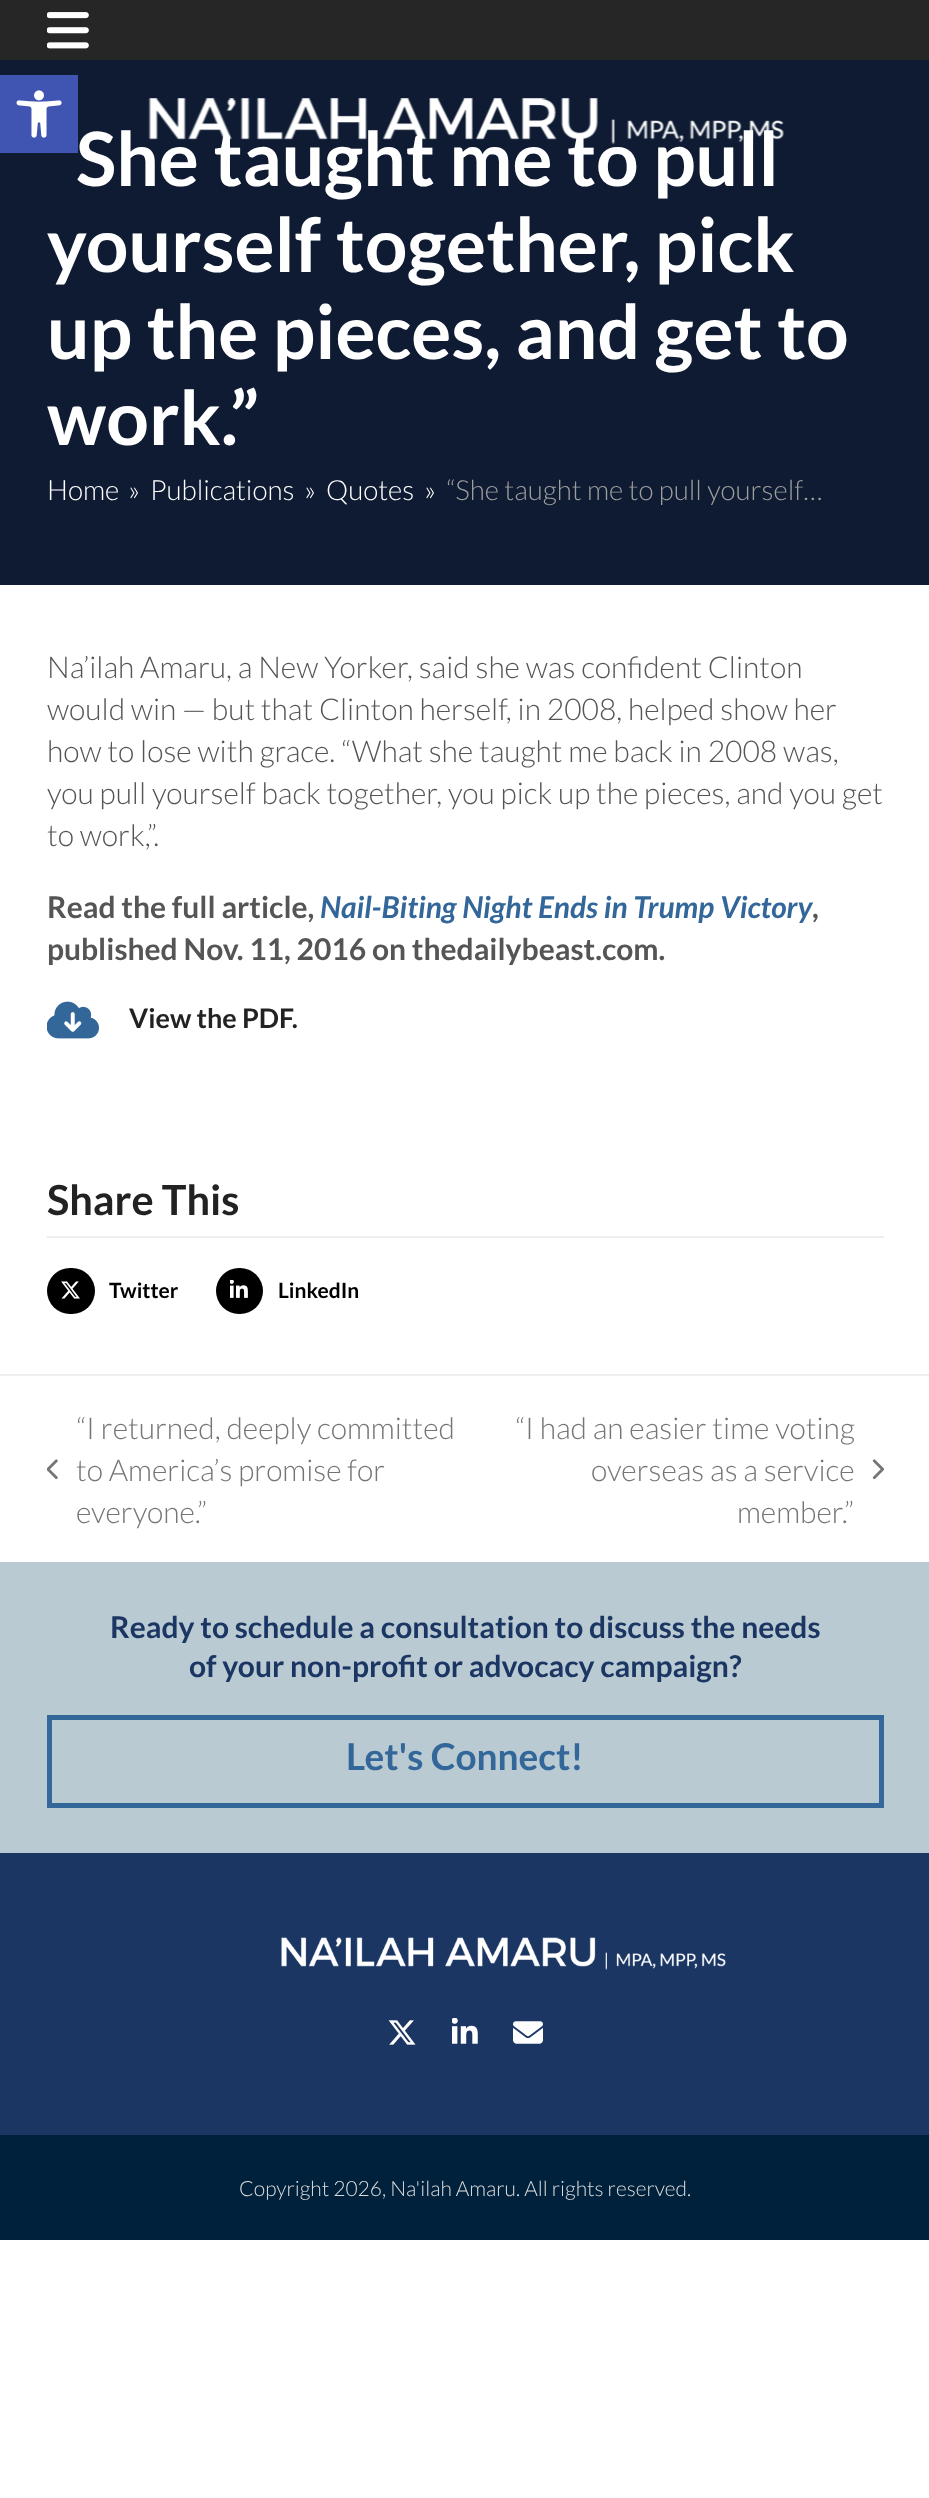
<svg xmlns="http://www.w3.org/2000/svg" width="929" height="2498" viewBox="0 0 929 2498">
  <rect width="100%" height="100%" fill="rgb(255,255,255)"/>
  <rect x="0" y="0" width="929" height="60" fill="rgb(38,38,38)"/>
  <image x="47" y="12" width="42" height="37" href="pic1.png"/>
  <rect x="0" y="60" width="929" height="525" fill="rgb(14,27,50)"/>
  <text x="76" y="186" font-family="Lato" font-size="75" font-weight="bold" fill="rgb(255,255,255)">She taught me to pull</text>
  <rect x="0" y="75" width="78" height="78" fill="rgb(64,84,178)"/>
  <image x="16" y="90" width="46" height="48" href="pic2.png"/>
  <image x="148" y="98" width="636" height="47" href="pic3.png"/>
  <g font-family="Lato" font-size="75" font-weight="bold" fill="rgb(255,255,255)">
    <text>
      <tspan x="47" y="272">yourself together, pick</tspan>
      <tspan x="47" y="359">up the pieces, and get to</tspan>
      <tspan x="47" y="445">work.”</tspan>
    </text>
  </g>
  <g font-family="Lato" font-size="27.75" font-weight="300" fill="rgb(255,255,255)">
    <text x="47" y="500">Home</text>
    <text x="128" y="500">»</text>
    <text x="150" y="500">Publications</text>
    <text x="304" y="500">»</text>
    <text x="326" y="500">Quotes</text>
    <text x="424" y="500">»</text>
  </g>
  <text x="446" y="500" font-family="Lato" font-size="27.75" font-weight="300" fill="rgb(158,158,158)">“She taught me to pull yourself…</text>
  <g font-family="Lato" font-size="30" font-weight="300" fill="rgb(85,85,85)">
    <text>
      <tspan x="47" y="678">Na’ilah Amaru, a New Yorker, said she was confident Clinton</tspan>
      <tspan x="47" y="720">would win — but that Clinton herself, in 2008, helped show her</tspan>
      <tspan x="47" y="762">how to lose with grace. “What she taught me back in 2008 was,</tspan>
      <tspan x="47" y="804">you pull yourself back together, you pick up the pieces, and you get</tspan>
      <tspan x="47" y="846">to work,”.</tspan>
    </text>
  </g>
  <text x="47" y="918" font-family="Lato" font-size="30" font-weight="bold" fill="rgb(85,85,85)">Read the full article,</text>
  <text x="320" y="918" font-family="Lato" font-size="30" font-weight="bold" font-style="italic" fill="rgb(51,102,153)">Nail-Biting Night Ends in Trump Victory</text>
  <g font-family="Lato" font-size="30" font-weight="bold" fill="rgb(85,85,85)">
    <text x="812" y="918">,</text>
    <text x="47" y="960">published Nov. 11, 2016 on thedailybeast.com.</text>
  </g>
  <image x="47" y="1001" width="52" height="38" href="pic4.png"/>
  <text x="129" y="1028" font-family="Lato" font-size="27" font-weight="bold" fill="rgb(34,34,34)">View the PDF.</text>
  <rect x="47" y="1236" width="837" height="2" fill="rgb(238,238,238)"/>
  <text x="47" y="1215" font-family="Lato" font-size="41.5" font-weight="bold" fill="rgb(34,34,34)">Share This</text>
  <rect x="47" y="1268" width="48" height="46" rx="23" fill="rgb(0,0,0)"/>
  <image x="61" y="1281" width="19" height="18" href="pic5.png"/>
  <text x="109" y="1298" font-family="Lato" font-size="21" font-weight="bold" fill="rgb(0,0,0)">Twitter</text>
  <rect x="216" y="1268" width="47" height="46" rx="23" fill="rgb(0,0,0)"/>
  <image x="230" y="1280" width="18" height="18" href="pic6.png"/>
  <text x="278" y="1298" font-family="Lato" font-size="21" font-weight="bold" fill="rgb(0,0,0)">LinkedIn</text>
  <rect x="0" y="1374" width="929" height="2" fill="rgb(238,238,238)"/>
  <text x="76" y="1439" font-family="Lato" font-size="30" font-weight="300" fill="rgb(117,117,117)">“I returned, deeply committed</text>
  <image x="47" y="1459" width="11" height="21" href="pic7.png"/>
  <g font-family="Lato" font-size="30" font-weight="300" fill="rgb(117,117,117)">
    <text>
      <tspan x="76" y="1481">to America’s promise for</tspan>
      <tspan x="76" y="1523">everyone.”</tspan>
    </text>
    <text x="515" y="1439">“I had an easier time voting</text>
    <text x="591" y="1481">overseas as a service</text>
  </g>
  <image x="872" y="1459" width="12" height="21" href="pic8.png"/>
  <text x="737" y="1523" font-family="Lato" font-size="30" font-weight="300" fill="rgb(117,117,117)">member.”</text>
  <rect x="0" y="1562" width="929" height="291" fill="rgb(185,202,210)"/>
  <g font-family="Lato" font-size="30" font-weight="bold" fill="rgb(27,54,99)">
    <text x="110" y="1638">Ready to schedule a consultation to discuss the needs</text>
    <text x="189" y="1677">of your non-profit or advocacy campaign?</text>
  </g>
  <rect x="49.5" y="1717.5" width="832" height="88" fill="none" stroke="rgb(51,102,153)" stroke-width="5"/>
  <text x="346" y="1770" font-family="Lato" font-size="37" font-weight="bold" fill="rgb(51,102,153)">Let's Connect!</text>
  <rect x="0" y="1853" width="929" height="282" fill="rgb(27,54,99)"/>
  <image x="281" y="1937" width="445" height="33" href="pic9.png"/>
  <image x="388" y="2020" width="28" height="25" href="pic10.png"/>
  <image x="452" y="2018" width="26" height="26" href="pic11.png"/>
  <image x="513" y="2021" width="30" height="23" href="pic12.png"/>
  <rect x="0" y="2135" width="929" height="105" fill="rgb(0,33,59)"/>
  <text x="239" y="2196" font-family="Lato" font-size="21" font-weight="300" fill="rgb(221,221,221)">Copyright 2026, Na'ilah Amaru. All rights reserved.</text>
</svg>
